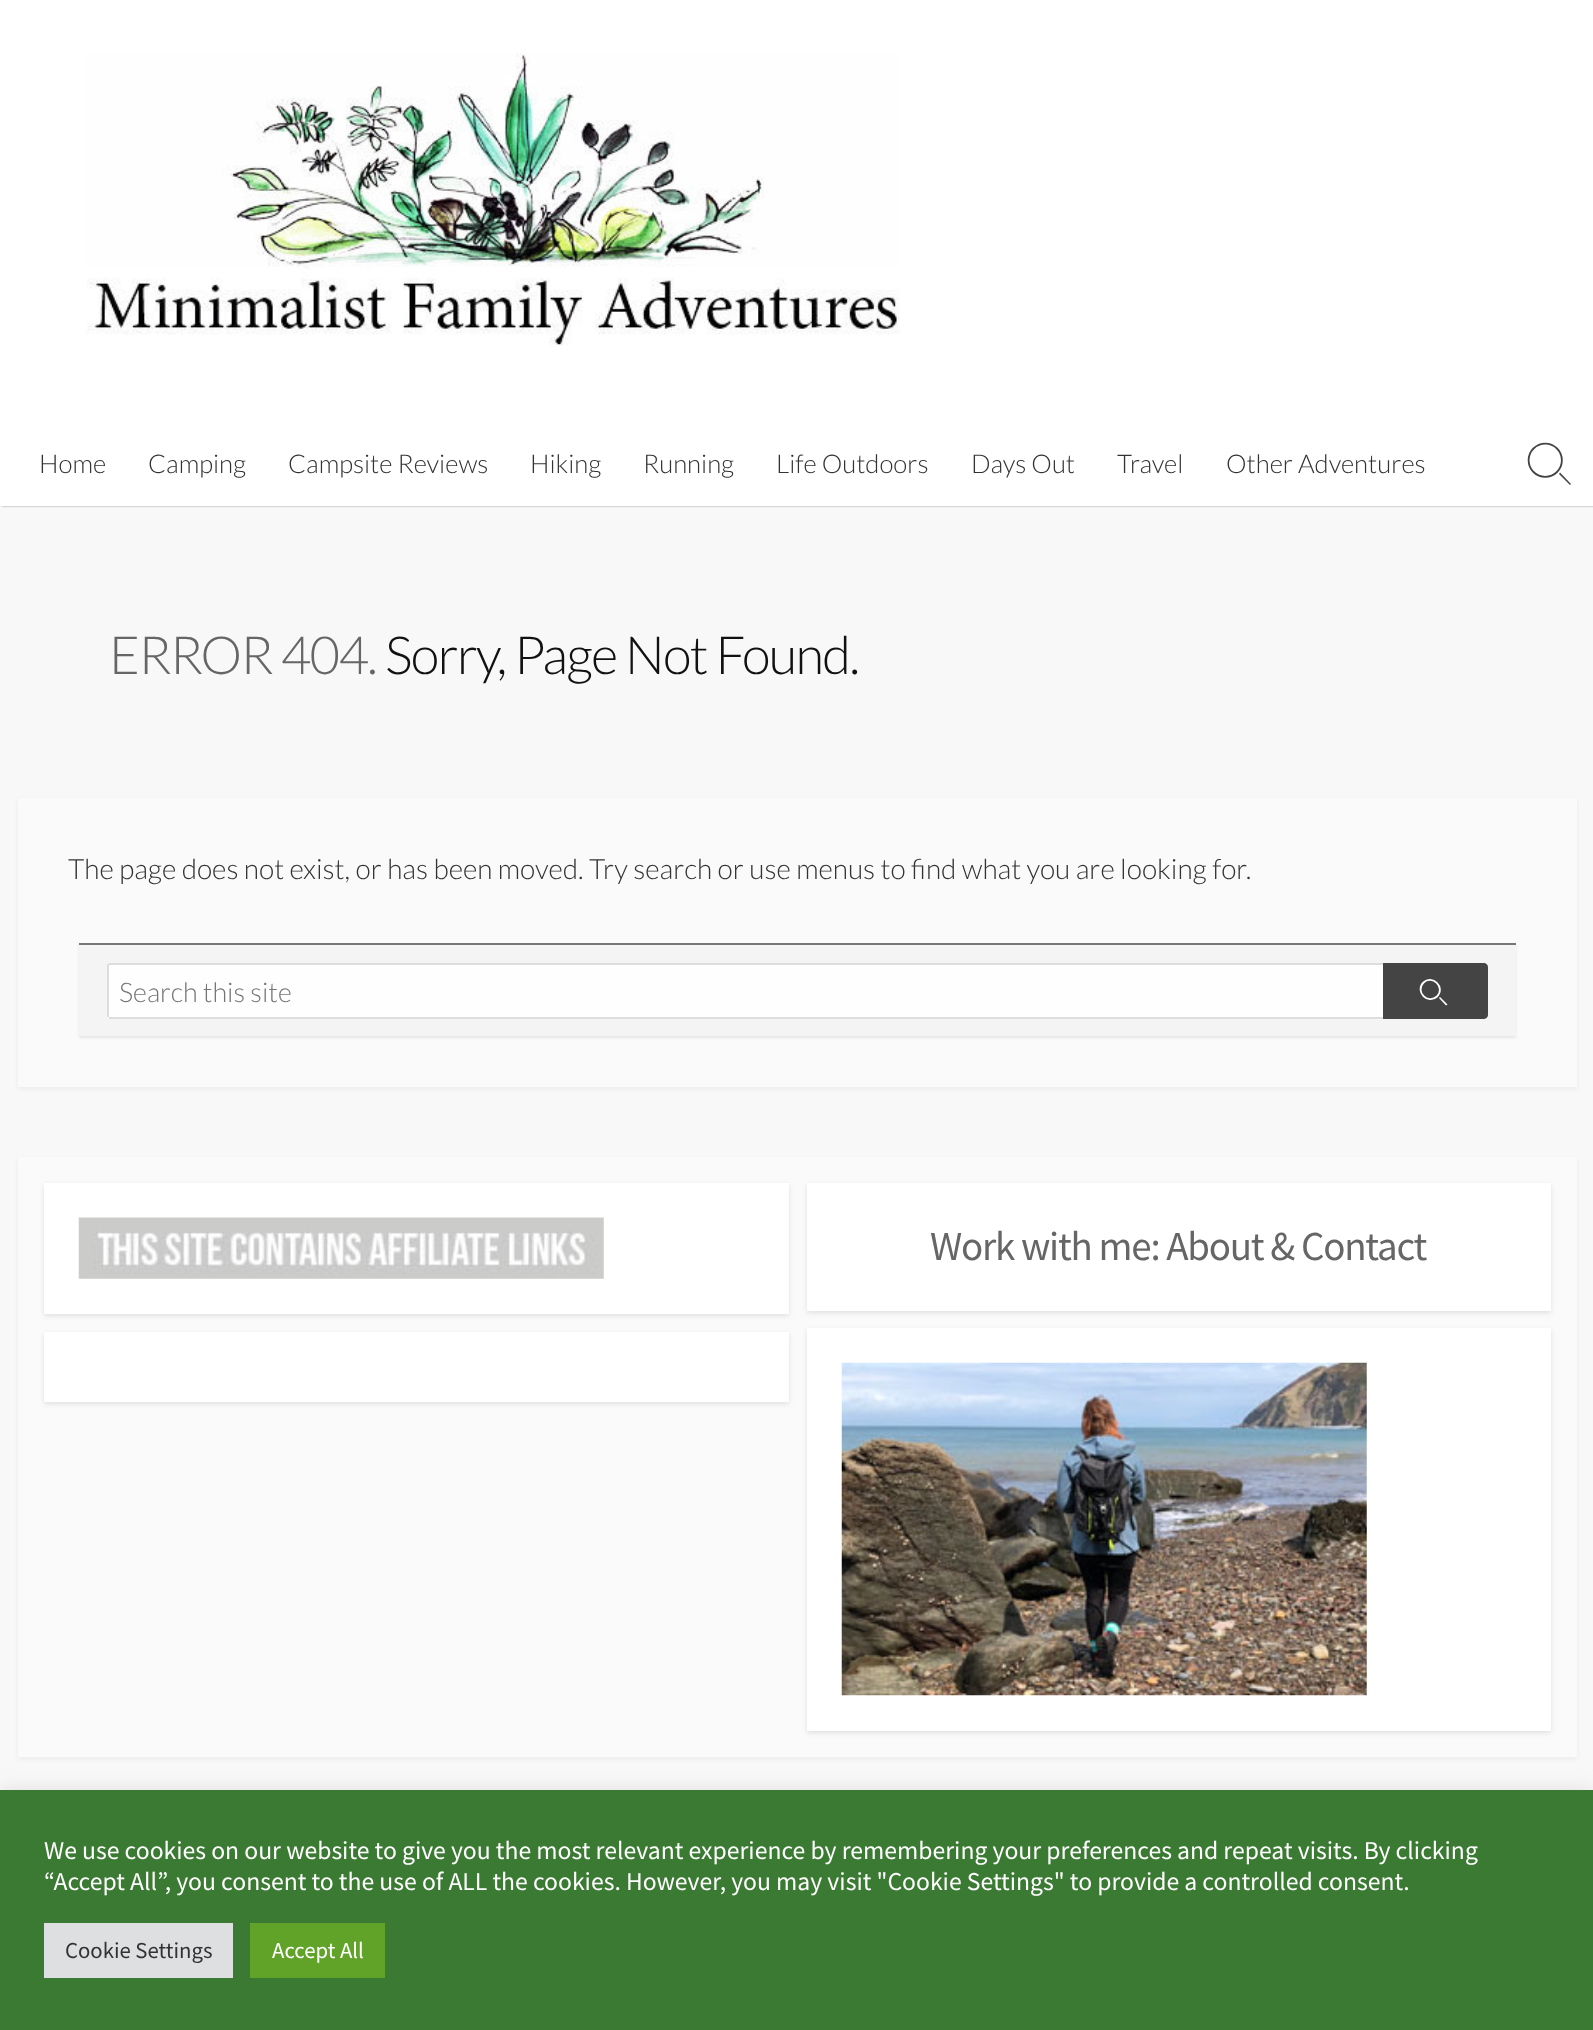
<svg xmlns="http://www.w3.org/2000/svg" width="1593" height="2030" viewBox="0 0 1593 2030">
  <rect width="100%" height="100%" fill="rgb(248,248,248)"/>
  <rect x="2" y="-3" width="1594" height="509" fill="rgba(0,0,0,0.4)" filter="blur(1px)"/>
  <rect x="0" y="0" width="1593" height="506" fill="rgb(255,255,255)"/>
  <image x="86" y="53" width="814" height="293" href="pic1.png"/>
  <g font-family="Lato" font-size="25.75" font-weight="300" fill="rgb(51,51,51)">
    <text x="39" y="473">Home</text>
    <text x="148" y="473">Camping</text>
    <text x="288" y="473">Campsite Reviews</text>
    <text x="530" y="473">Hiking</text>
    <text x="643" y="473">Running</text>
    <text x="776" y="473">Life Outdoors</text>
    <text x="971" y="473">Days Out</text>
    <text x="1117" y="473">Travel</text>
    <text x="1226" y="473">Other Adventures</text>
  </g>
  <path d="M1533.5 448.5C1540 442 1550.5 442 1557 448.5C1563.5 455 1563.5 465.5 1557 472C1550.5 478.5 1540 478.5 1533.5 472C1527 465.5 1527 455 1533.5 448.5Z" fill="none" stroke="rgb(68,68,68)" stroke-width="1.8"/>
  <path d="M1559 474L1560 472.5L1571 484L1570 485Z" fill="rgb(68,68,68)"/>
  <text x="109" y="674" font-family="Lato" font-size="52.5" font-weight="300" letter-spacing="-1.6" fill="rgb(102,102,102)">ERROR 404.</text>
  <text x="385" y="674" font-family="Lato" font-size="52.5" font-weight="300" letter-spacing="-1.6" fill="rgb(17,17,17)">Sorry, Page Not Found.</text>
  <rect x="18" y="800" width="1559" height="289" fill="rgba(0,0,0,0.05)" filter="blur(2.5px)"/>
  <rect x="18" y="798" width="1559" height="289" fill="rgb(250,250,250)"/>
  <text x="68" y="879" font-family="Lato" font-size="28" font-weight="300" fill="rgb(51,51,51)">The page does not exist, or has been moved. Try search or use menus to find what you are looking for.</text>
  <rect x="79" y="945" width="1437" height="93" fill="rgba(0,0,0,0.08)" filter="blur(1px)"/>
  <rect x="79" y="945" width="1437" height="91" fill="rgb(244,244,244)"/>
  <rect x="79" y="943" width="1437" height="2" fill="rgb(119,119,119)"/>
  <path d="M111 963H1383V1019H111C109 1019 107 1017 107 1015V967C107 965 109 963 111 963Z" fill="rgb(254,254,254)"/>
  <rect x="109" y="963" width="1274" height="2" fill="rgb(221,221,221)"/>
  <rect x="109" y="1017" width="1274" height="2" fill="rgb(221,221,221)"/>
  <rect x="107" y="964" width="2" height="53" fill="rgb(221,221,221)"/>
  <text x="119" y="1002" font-family="Lato" font-size="27" font-weight="300" fill="rgb(117,117,117)">Search this site</text>
  <path d="M1383 963H1484C1486 963 1488 965 1488 967V1015C1488 1017 1486 1019 1484 1019H1383Z" fill="rgb(68,68,68)"/>
  <path d="M1423.5 982.5C1432 974 1446 987.5 1437 996.5C1428 1005 1414.5 991.5 1423.5 982.5Z" fill="none" stroke="rgb(255,255,255)" stroke-width="1.8"/>
  <path d="M1439 998L1440 997L1447.5 1004.5L1446 1005.5Z" fill="rgb(255,255,255)"/>
  <rect x="18" y="1159" width="1559" height="600" fill="rgba(0,0,0,0.05)" filter="blur(2.5px)"/>
  <rect x="18" y="1157" width="1559" height="600" fill="rgb(250,250,250)"/>
  <rect x="44" y="1185" width="745" height="131" fill="rgba(0,0,0,0.1)" filter="blur(2.5px)"/>
  <rect x="44" y="1183" width="745" height="131" fill="rgb(255,255,255)"/>
  <image x="78" y="1217" width="526" height="62" href="pic2.png"/>
  <rect x="807" y="1185" width="744" height="128" fill="rgba(0,0,0,0.1)" filter="blur(2.5px)"/>
  <rect x="807" y="1183" width="744" height="128" fill="rgb(255,255,255)"/>
  <text x="930" y="1260" font-family="Source Sans Pro" font-size="41" letter-spacing="-1.25" fill="rgb(102,102,102)">Work with me: About &amp; Contact</text>
  <rect x="44" y="1334" width="745" height="70" fill="rgba(0,0,0,0.1)" filter="blur(2.5px)"/>
  <rect x="44" y="1332" width="745" height="70" fill="rgb(255,255,255)"/>
  <rect x="807" y="1330" width="744" height="403" fill="rgba(0,0,0,0.1)" filter="blur(2.5px)"/>
  <rect x="807" y="1328" width="744" height="403" fill="rgb(255,255,255)"/>
  <image x="841" y="1362" width="526" height="334" href="pic3.png"/>
  <rect x="0" y="1789" width="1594" height="239" fill="rgba(172,171,171,0.3)" filter="blur(9px)"/>
  <rect x="0" y="1790" width="1593" height="240" fill="rgb(58,122,50)"/>
  <g font-family="Source Sans Pro" font-size="25.67" fill="rgb(255,255,255)">
    <text>
      <tspan x="44" y="1859">We use cookies on our website to give you the most relevant experience by remembering your preferences and repeat visits. By clicking</tspan>
      <tspan x="44" y="1890">“Accept All”, you consent to the use of ALL the cookies. However, you may visit "Cookie Settings" to provide a controlled consent.</tspan>
    </text>
  </g>
  <rect x="44" y="1923" width="189" height="55" fill="rgb(222,223,224)"/>
  <text x="65" y="1958" font-family="Source Sans Pro" font-size="22.75" fill="rgb(51,51,51)">Cookie Settings</text>
  <rect x="250" y="1923" width="135" height="55" fill="rgb(97,162,41)"/>
  <text x="272" y="1958" font-family="Source Sans Pro" font-size="22.75" fill="rgb(255,255,255)">Accept All</text>
</svg>
